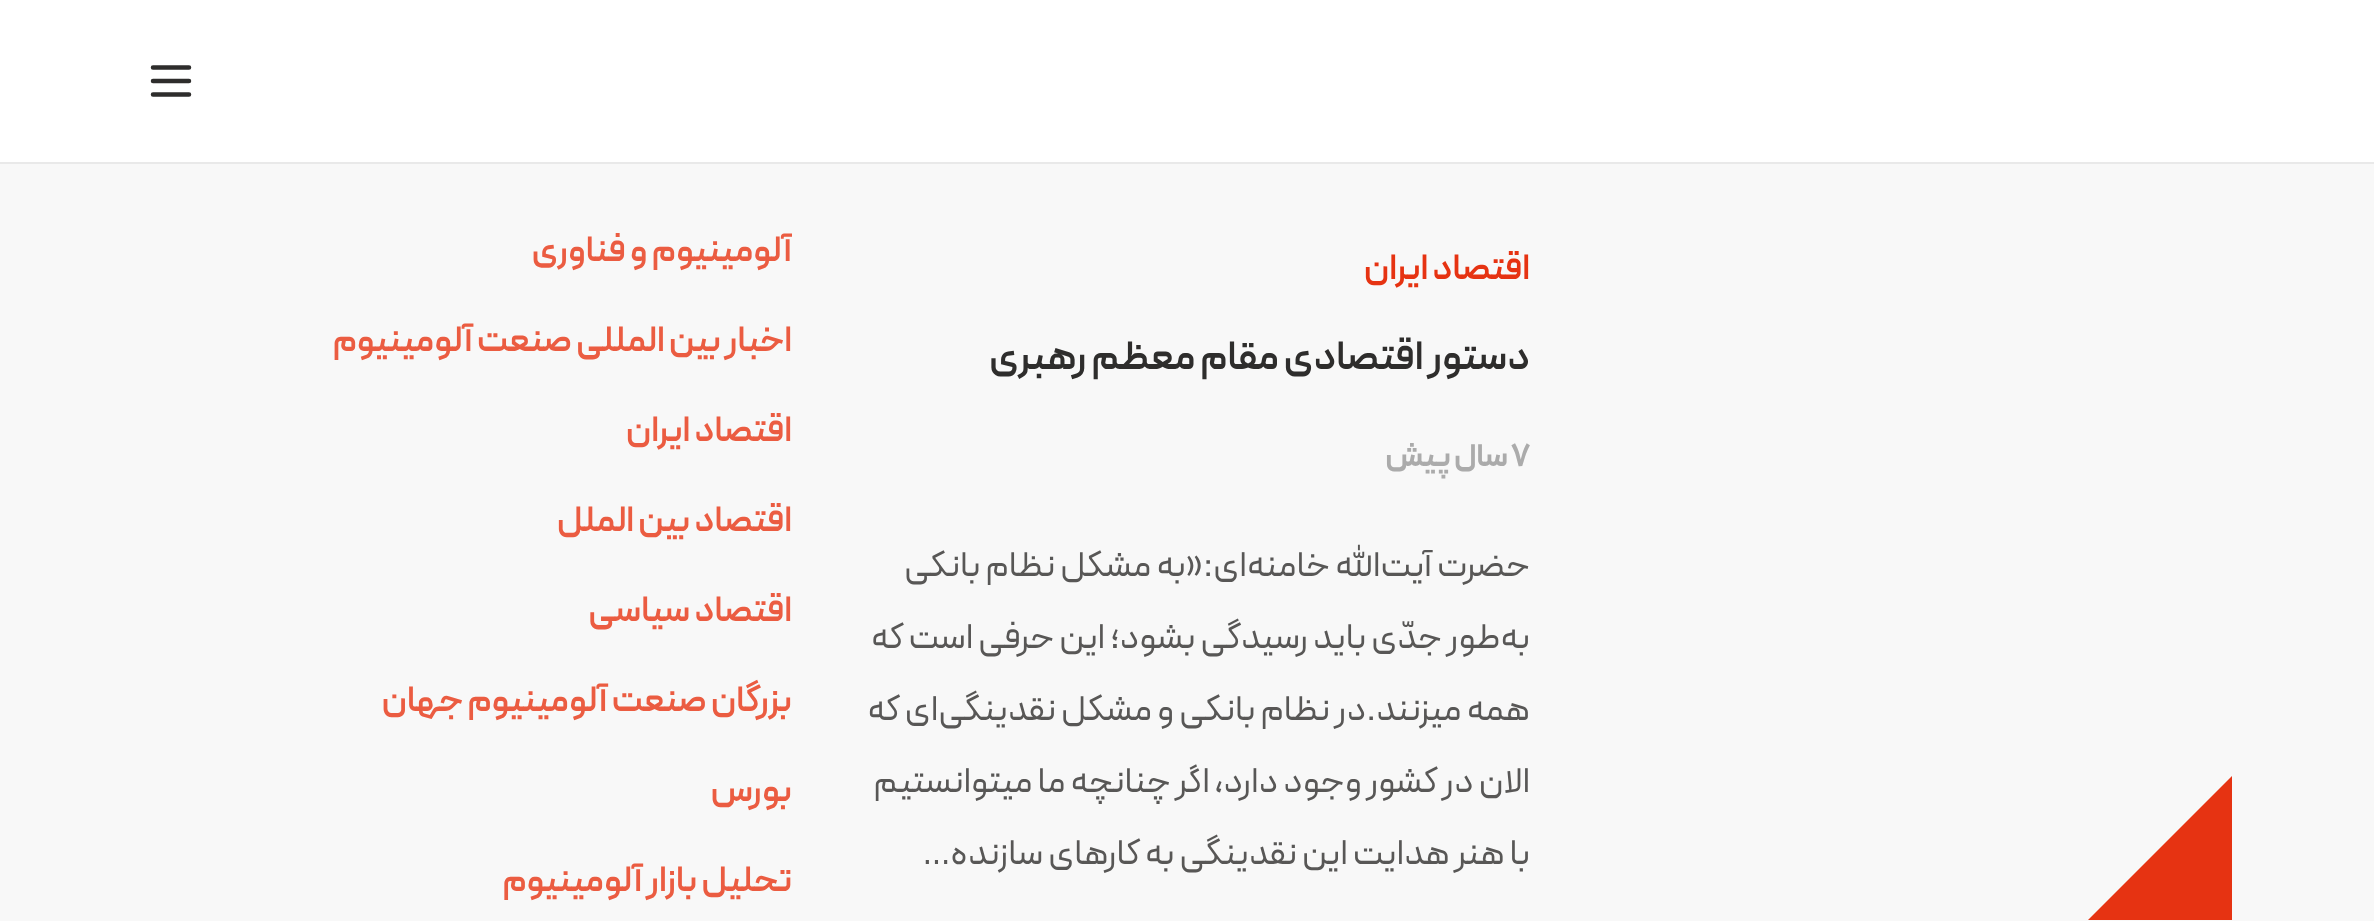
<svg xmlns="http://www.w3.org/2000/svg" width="2374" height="921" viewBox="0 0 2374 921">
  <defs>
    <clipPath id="clip1"><rect x="531" y="216" width="261" height="72"/></clipPath>
  </defs>
  <rect width="100%" height="100%" fill="rgb(248,248,248)"/>
  <rect x="0" y="0" width="2374" height="162" fill="rgb(255,255,255)"/>
  <rect x="0" y="162" width="2374" height="2" fill="rgb(233,233,233)"/>
  <path d="M153 67.5H189M153 81H189M153 94.5H189" fill="none" stroke="rgb(46,45,44)" stroke-width="4.5" stroke-linecap="round" stroke-linejoin="round"/>
  <path d="M2232 776V920H2088Z" fill="rgb(230,51,18)"/>
  <text x="1530" y="279" font-family="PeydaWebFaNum" font-size="36" font-weight="600" direction="rtl" fill="rgb(230,51,18)">اقتصاد ایران</text>
  <text x="1530" y="369" font-family="PeydaWebFaNum" font-size="40.5" font-weight="600" direction="rtl" fill="rgb(46,45,44)">دستور اقتصادی مقام معظم رهبری</text>
  <text x="1511" y="466" font-family="PeydaWebFaNum" font-size="31.5" font-weight="bold" fill="rgb(171,171,171)">7</text>
  <text x="1508" y="466" font-family="PeydaWebFaNum" font-size="31.5" font-weight="bold" direction="rtl" fill="rgb(171,171,171)">سال پیش</text>
  <g font-family="PeydaWebFaNum" font-size="36" direction="rtl" fill="rgb(88,87,86)">
    <text x="1530" y="576">حضرت آیت‌الله خامنه‌ای:«به مشکل نظام بانکی</text>
    <text x="1530" y="648">به‌طور جدّی باید رسیدگی بشود؛ این حرفی است که</text>
    <text x="1530" y="720">همه میزنند.در نظام بانکی و مشکل نقدینگی‌ای که</text>
    <text x="1530" y="792">الان در کشور وجود دارد، اگر چنانچه ما میتوانستیم</text>
    <text x="1530" y="864">با هنر هدایت این نقدینگی به کارهای سازنده…</text>
  </g>
  <g clip-path="url(#clip1)">
    <text x="792" y="261" font-family="PeydaWebFaNum" font-size="36" font-weight="600" direction="rtl" fill="rgb(235,92,65)">آلومینیوم و فناوری</text>
  </g>
  <g font-family="PeydaWebFaNum" font-size="36" font-weight="600" direction="rtl" fill="rgb(235,92,65)">
    <text x="792" y="351">اخبار بین المللی صنعت آلومینیوم</text>
    <text x="792" y="441">اقتصاد ایران</text>
    <text x="792" y="531">اقتصاد بین الملل</text>
    <text x="792" y="621">اقتصاد سیاسی</text>
    <text x="792" y="711">بزرگان صنعت آلومینیوم جهان</text>
    <text x="792" y="801">بورس</text>
    <text x="792" y="891">تحلیل بازار آلومینیوم</text>
  </g>
</svg>
